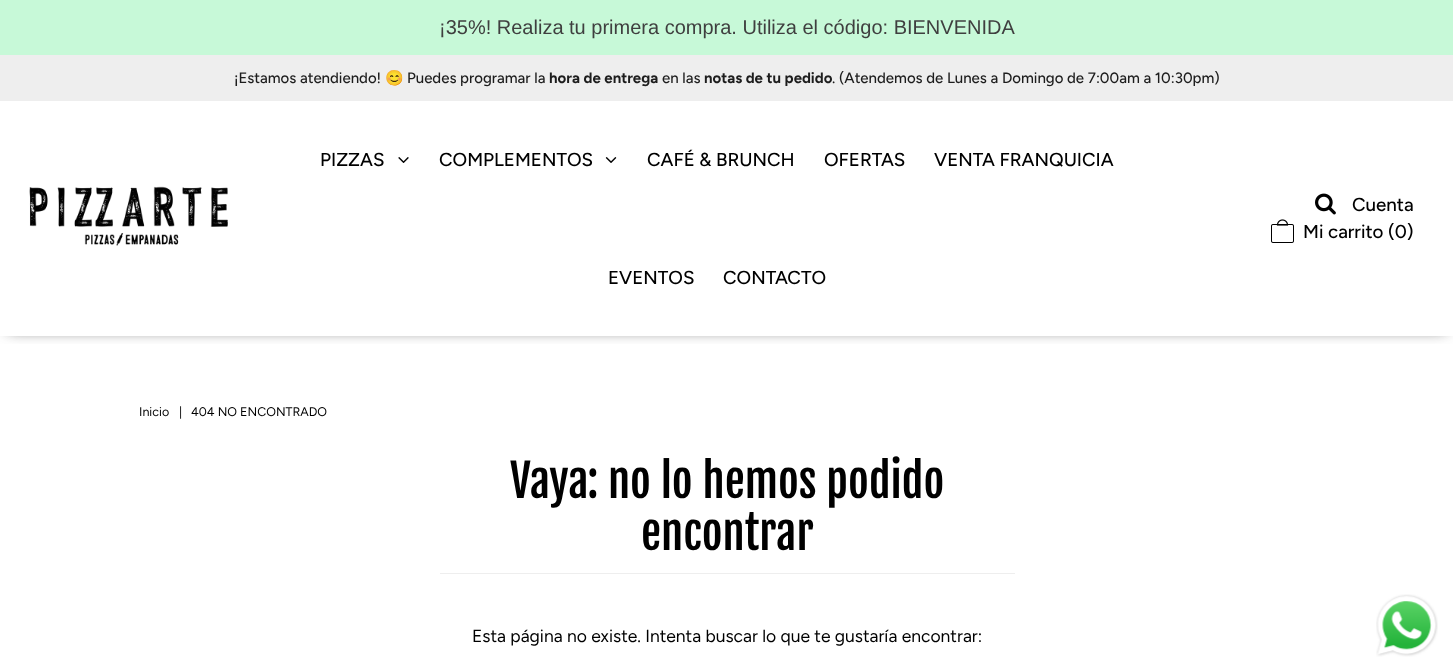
<svg xmlns="http://www.w3.org/2000/svg" width="1453" height="672" viewBox="0 0 1453 672">
  <defs>
    <clipPath id="clip1"><rect x="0" y="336" width="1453" height="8"/></clipPath>
  </defs>
  <rect width="100%" height="100%" fill="rgb(255,255,255)"/>
  <g clip-path="url(#clip1)">
    <rect x="8" y="61" width="1438" height="268" fill="rgb(51,51,51)" filter="blur(7.5px)"/>
  </g>
  <rect x="0" y="0" width="1453" height="55" fill="rgb(199,249,216)"/>
  <text x="439" y="34" font-family="Liberation Sans" font-size="20" fill="rgb(63,63,63)">¡35%! Realiza tu primera compra. Utiliza el código: BIENVENIDA</text>
  <rect x="0" y="55" width="1453" height="46" fill="rgb(238,238,238)"/>
  <text x="234" y="83" font-family="Figtree" font-size="15" font-weight="500" fill="rgb(29,29,29)">¡Estamos atendiendo!</text>
  <text x="385" y="83" font-family="Noto Color Emoji" font-size="15" fill="rgb(29,29,29)">😊</text>
  <text x="407" y="83" font-family="Figtree" font-size="15" font-weight="500" fill="rgb(29,29,29)">Puedes programar la</text>
  <text x="549" y="83" font-family="Figtree" font-size="15" font-weight="bold" fill="rgb(29,29,29)">hora de entrega</text>
  <text x="662" y="83" font-family="Figtree" font-size="15" font-weight="500" fill="rgb(29,29,29)">en las</text>
  <text x="704" y="83" font-family="Figtree" font-size="15" font-weight="bold" fill="rgb(29,29,29)">notas de tu pedido</text>
  <text x="832" y="83" font-family="Figtree" font-size="15" font-weight="500" fill="rgb(29,29,29)">. (Atendemos de Lunes a Domingo de 7:00am a 10:30pm)</text>
  <image x="29" y="186" width="199" height="60" href="pic1.png"/>
  <text x="320" y="166" font-family="Figtree" font-size="18.75" font-weight="500" fill="rgb(0,0,0)">PIZZAS</text>
  <image x="398" y="157" width="11" height="6" href="pic2.png"/>
  <text x="439" y="166" font-family="Figtree" font-size="18.75" font-weight="500" fill="rgb(0,0,0)">COMPLEMENTOS</text>
  <image x="605" y="157" width="12" height="6" href="pic3.png"/>
  <g font-family="Figtree" font-size="18.75" font-weight="500" fill="rgb(0,0,0)">
    <text x="647" y="166">CAFÉ &amp; BRUNCH</text>
    <text x="824" y="166">OFERTAS</text>
    <text x="934" y="166">VENTA FRANQUICIA</text>
    <text x="608" y="284">EVENTOS</text>
    <text x="723" y="284">CONTACTO</text>
  </g>
  <image x="1315" y="193" width="21" height="22" href="pic4.png"/>
  <text x="1352" y="211" font-family="Figtree" font-size="18.75" font-weight="500" fill="rgb(0,0,0)">Cuenta</text>
  <image x="1271" y="219" width="23" height="24" href="pic5.png"/>
  <text x="1303" y="238" font-family="Figtree" font-size="18.75" font-weight="500" fill="rgb(0,0,0)">Mi carrito (0)</text>
  <g font-family="Figtree" font-size="12.5" fill="rgb(0,0,0)">
    <text x="139" y="416">Inicio</text>
    <text x="179" y="416">|</text>
    <text x="191" y="416">404 NO ENCONTRADO</text>
  </g>
  <rect x="440" y="573" width="575" height="1" fill="rgb(238,238,238)"/>
  <g font-family="Fjalla One" font-size="45" fill="rgb(0,0,0)">
    <text x="510" y="498">Vaya: no lo hemos podido</text>
    <text x="641" y="550">encontrar</text>
  </g>
  <text x="472" y="642" font-family="Figtree" font-size="17.5" fill="rgb(0,0,0)">Esta página no existe. Intenta buscar lo que te gustaría encontrar:</text>
  <image x="1376" y="594" width="62" height="63" href="pic6.png"/>
</svg>
